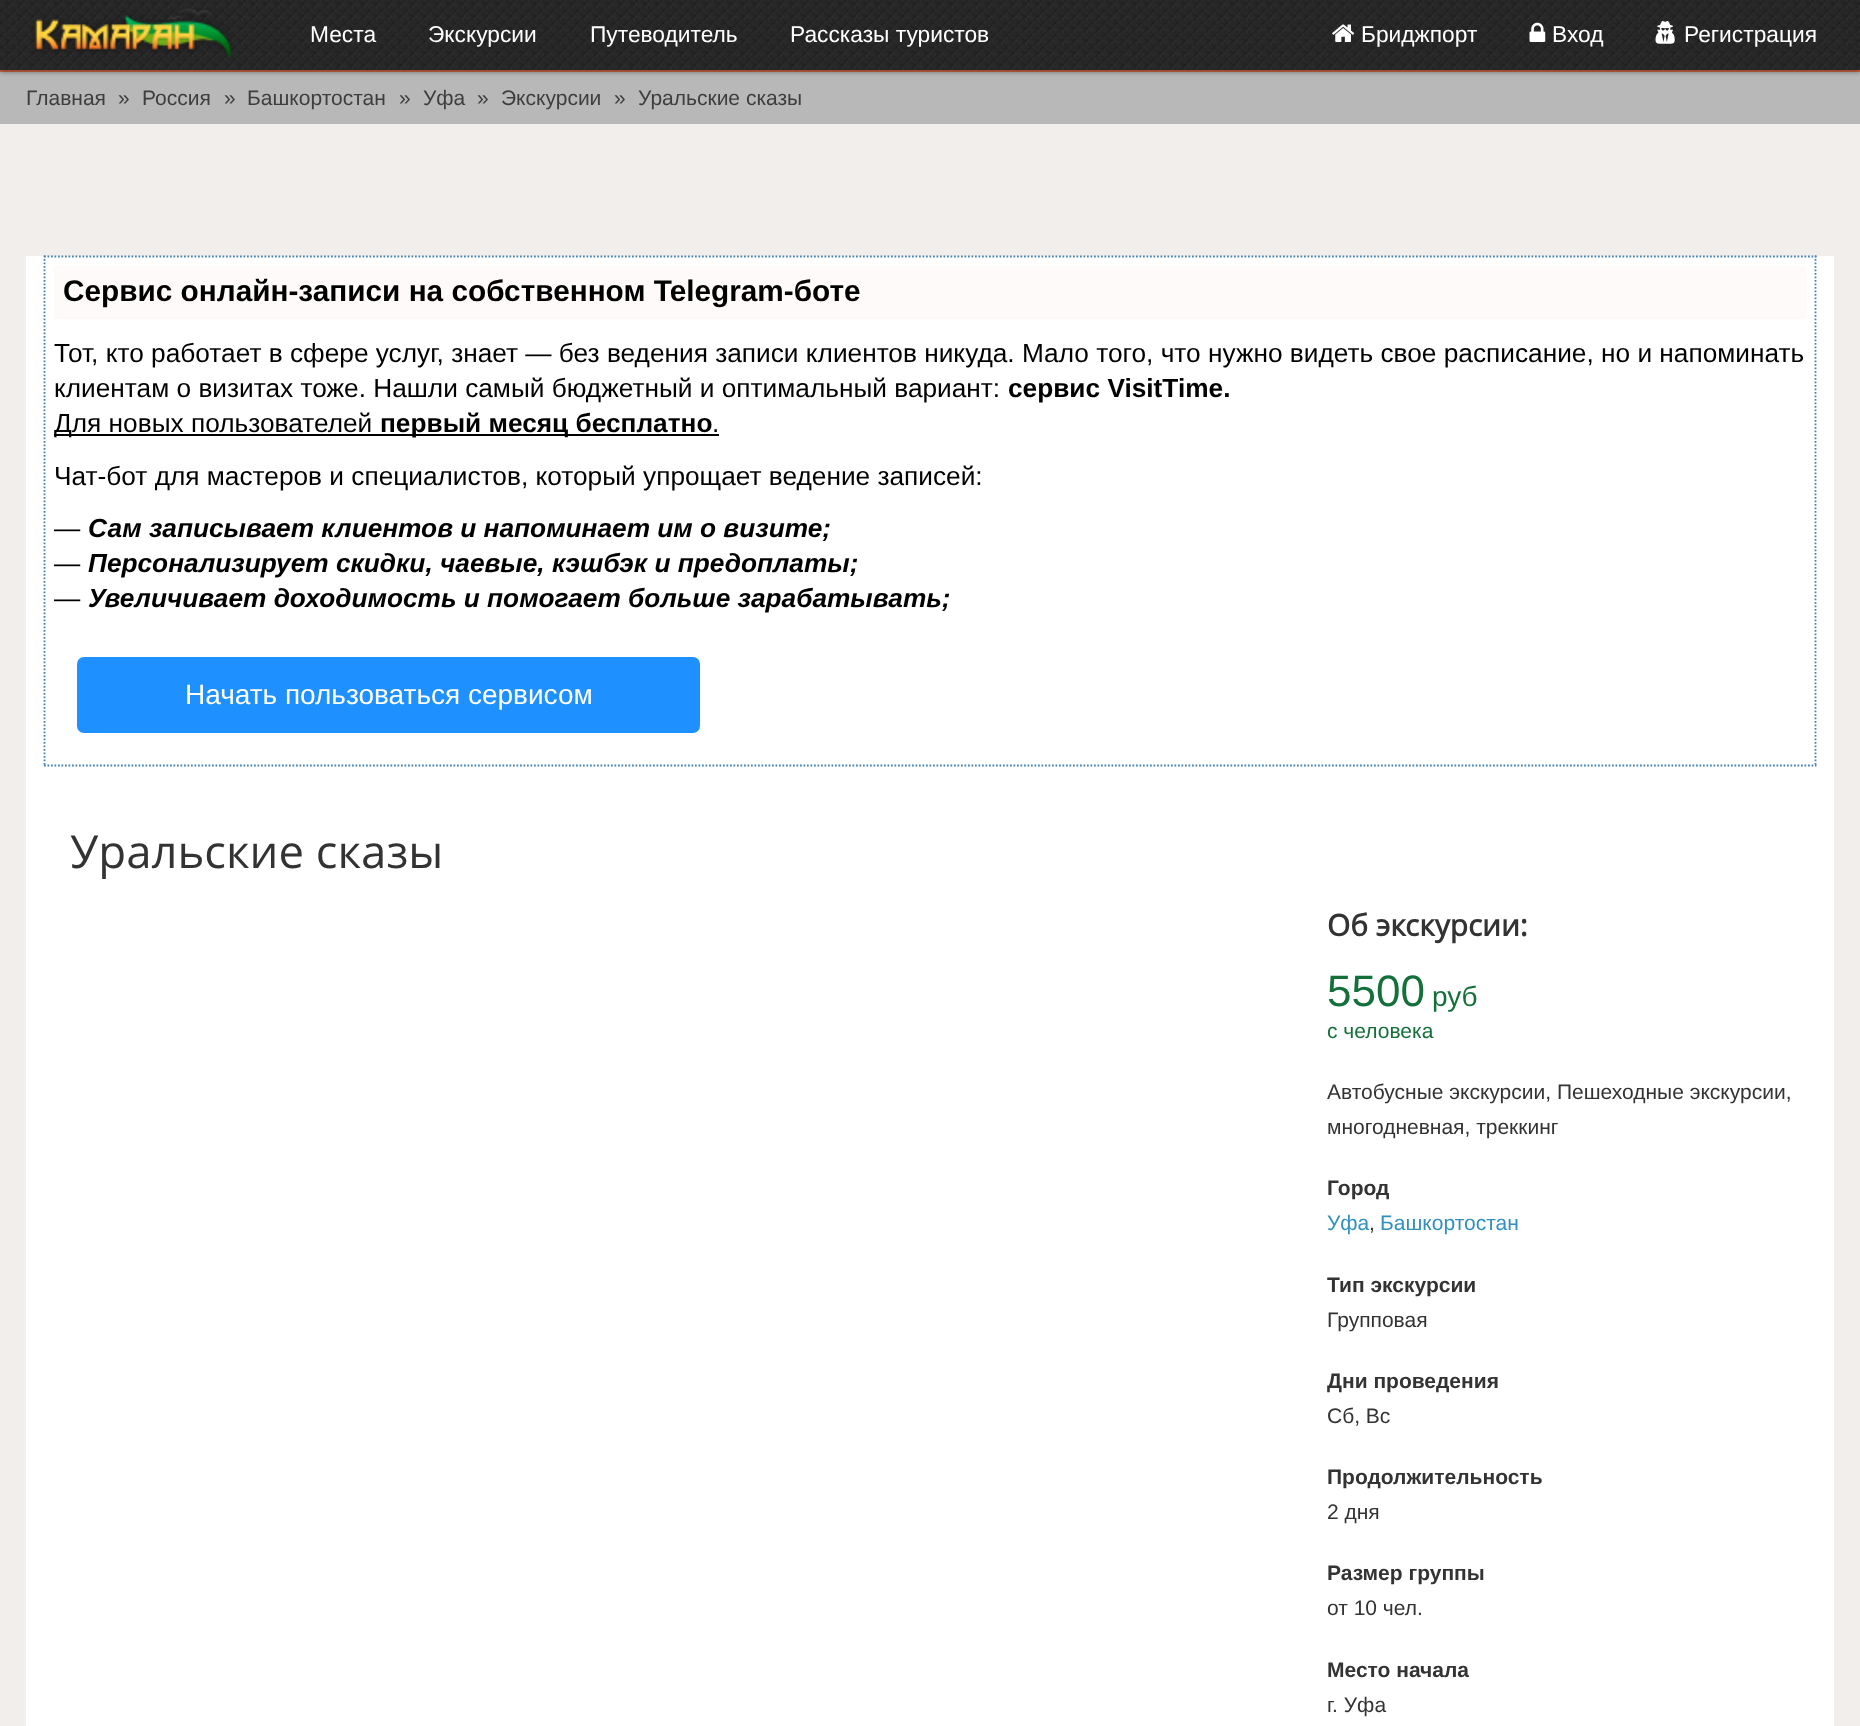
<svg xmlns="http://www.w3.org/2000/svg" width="1860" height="1726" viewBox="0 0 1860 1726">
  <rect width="100%" height="100%" fill="rgb(242,238,235)"/>
  <rect x="0" y="70" width="1860" height="2" fill="rgb(216,106,67)"/>
  <rect x="0" y="72" width="1860" height="52" fill="rgb(184,184,184)"/>
  <rect x="0" y="2" width="1860" height="70" fill="rgba(0,0,0,0.4)" filter="blur(2.5px)"/>
  <image x="0" y="0" width="1860" height="70" href="pic1.png"/>
  <image x="33" y="8" width="199" height="50" href="pic2.png"/>
  <g font-family="Liberation Sans" font-size="22.75" fill="rgb(255,255,255)">
    <text x="310" y="42">Места</text>
    <text x="428" y="42">Экскурсии</text>
    <text x="590" y="42">Путеводитель</text>
    <text x="790" y="42">Рассказы туристов</text>
  </g>
  <image x="1332" y="24" width="23" height="18" href="pic3.png"/>
  <text x="1361" y="42" font-family="Liberation Sans" font-size="22.75" fill="rgb(255,255,255)">Бриджпорт</text>
  <image x="1529" y="22" width="17" height="20" href="pic4.png"/>
  <text x="1552" y="42" font-family="Liberation Sans" font-size="22.75" fill="rgb(255,255,255)">Вход</text>
  <image x="1655" y="21" width="20" height="23" href="pic5.png"/>
  <text x="1684" y="42" font-family="Liberation Sans" font-size="22.75" fill="rgb(255,255,255)">Регистрация</text>
  <g font-family="Liberation Sans" font-size="21" fill="rgb(62,62,62)">
    <text x="26" y="105">Главная</text>
    <text x="118" y="105">»</text>
    <text x="142" y="105">Россия</text>
    <text x="224" y="105">»</text>
    <text x="247" y="105">Башкортостан</text>
    <text x="399" y="105">»</text>
    <text x="423" y="105">Уфа</text>
    <text x="477" y="105">»</text>
    <text x="501" y="105">Экскурсии</text>
    <text x="614" y="105">»</text>
    <text x="638" y="105">Уральские сказы</text>
  </g>
  <rect x="26" y="256" width="1808" height="1470" fill="rgb(255,255,255)"/>
  <path d="M44 256.5H1816.5" fill="none" stroke="rgb(70,130,180)" stroke-width="1.8" stroke-dasharray="1.75 1.75"/>
  <path d="M1815.5 255.5V766.5" fill="none" stroke="rgb(70,130,180)" stroke-width="1.8" stroke-dasharray="1.75 1.75"/>
  <path d="M44 765.5H1816.5" fill="none" stroke="rgb(70,130,180)" stroke-width="1.8" stroke-dasharray="1.75 1.75"/>
  <path d="M44.5 255.5V766.5" fill="none" stroke="rgb(70,130,180)" stroke-width="1.8" stroke-dasharray="1.75 1.75"/>
  <rect x="54" y="266" width="1752" height="53" fill="rgb(255,250,250)"/>
  <text x="63" y="301" font-family="Liberation Sans" font-size="29.75" font-weight="bold" fill="rgb(0,0,0)">Сервис онлайн-записи на собственном Telegram-боте</text>
  <g font-family="Liberation Sans" font-size="26.25" fill="rgb(0,0,0)">
    <text>
      <tspan x="54" y="362">Тот, кто работает в сфере услуг, знает — без ведения записи клиентов никуда. Мало того, что нужно видеть свое расписание, но и напоминать</tspan>
      <tspan x="54" y="397">клиентам о визитах тоже. Нашли самый бюджетный и оптимальный вариант:</tspan>
    </text>
  </g>
  <text x="1008" y="397" font-family="Liberation Sans" font-size="26.25" font-weight="bold" fill="rgb(0,0,0)">сервис VisitTime.</text>
  <rect x="54" y="434" width="665" height="2" fill="rgb(0,0,0)"/>
  <text x="54" y="432" font-family="Liberation Sans" font-size="26.25" fill="rgb(0,0,0)">Для новых пользователей</text>
  <text x="380" y="432" font-family="Liberation Sans" font-size="26.25" font-weight="bold" fill="rgb(0,0,0)">первый месяц бесплатно</text>
  <g font-family="Liberation Sans" font-size="26.25" fill="rgb(0,0,0)">
    <text x="712" y="432">.</text>
    <text>
      <tspan x="54" y="485">Чат-бот для мастеров и специалистов, который упрощает ведение записей:</tspan>
      <tspan x="54" y="537">—</tspan>
    </text>
  </g>
  <text x="88" y="537" font-family="Liberation Sans" font-size="26.25" font-weight="bold" font-style="italic" fill="rgb(0,0,0)">Сам записывает клиентов и напоминает им о визите;</text>
  <text x="54" y="572" font-family="Liberation Sans" font-size="26.25" fill="rgb(0,0,0)">—</text>
  <text x="88" y="572" font-family="Liberation Sans" font-size="26.25" font-weight="bold" font-style="italic" fill="rgb(0,0,0)">Персонализирует скидки, чаевые, кэшбэк и предоплаты;</text>
  <text x="54" y="607" font-family="Liberation Sans" font-size="26.25" fill="rgb(0,0,0)">—</text>
  <text x="88" y="607" font-family="Liberation Sans" font-size="26.25" font-weight="bold" font-style="italic" fill="rgb(0,0,0)">Увеличивает доходимость и помогает больше зарабатывать;</text>
  <rect x="76" y="656" width="625" height="78" rx="8" fill="rgb(30,144,255)" stroke="rgb(255,255,255)" stroke-width="2"/>
  <text x="185" y="704" font-family="Liberation Sans" font-size="28" fill="rgb(255,255,255)">Начать пользоваться сервисом</text>
  <text x="70" y="868" font-family="Open Sans" font-size="45.5" fill="rgb(51,51,51)">Уральские сказы</text>
  <text x="1327" y="936" font-family="Open Sans" font-size="29.75" font-weight="bold" fill="rgb(51,51,51)">Об экскурсии:</text>
  <text x="1327" y="1006" font-family="Liberation Sans" font-size="44" fill="rgb(19,112,58)">5500</text>
  <text x="1432" y="1006" font-family="Liberation Sans" font-size="28" fill="rgb(19,112,58)">руб</text>
  <text x="1327" y="1038" font-family="Liberation Sans" font-size="21" fill="rgb(19,112,58)">с человека</text>
  <g font-family="Liberation Sans" font-size="21" fill="rgb(51,51,51)">
    <text>
      <tspan x="1327" y="1099">Автобусные экскурсии, Пешеходные экскурсии,</tspan>
      <tspan x="1327" y="1134">многодневная, треккинг</tspan>
    </text>
  </g>
  <text x="1327" y="1195" font-family="Liberation Sans" font-size="21" font-weight="bold" fill="rgb(51,51,51)">Город</text>
  <text x="1327" y="1230" font-family="Liberation Sans" font-size="21" fill="rgb(48,144,190)">Уфа</text>
  <text x="1369" y="1230" font-family="Liberation Sans" font-size="21" fill="rgb(51,51,51)">,</text>
  <text x="1380" y="1230" font-family="Liberation Sans" font-size="21" fill="rgb(48,144,190)">Башкортостан</text>
  <text x="1327" y="1292" font-family="Liberation Sans" font-size="21" font-weight="bold" fill="rgb(51,51,51)">Тип экскурсии</text>
  <text x="1327" y="1327" font-family="Liberation Sans" font-size="21" fill="rgb(51,51,51)">Групповая</text>
  <text x="1327" y="1388" font-family="Liberation Sans" font-size="21" font-weight="bold" fill="rgb(51,51,51)">Дни проведения</text>
  <text x="1327" y="1423" font-family="Liberation Sans" font-size="21" fill="rgb(51,51,51)">Сб, Вс</text>
  <text x="1327" y="1484" font-family="Liberation Sans" font-size="21" font-weight="bold" fill="rgb(51,51,51)">Продолжительность</text>
  <text x="1327" y="1519" font-family="Liberation Sans" font-size="21" fill="rgb(51,51,51)">2 дня</text>
  <text x="1327" y="1580" font-family="Liberation Sans" font-size="21" font-weight="bold" fill="rgb(51,51,51)">Размер группы</text>
  <text x="1327" y="1615" font-family="Liberation Sans" font-size="21" fill="rgb(51,51,51)">от 10 чел.</text>
  <text x="1327" y="1677" font-family="Liberation Sans" font-size="21" font-weight="bold" fill="rgb(51,51,51)">Место начала</text>
  <text x="1327" y="1712" font-family="Liberation Sans" font-size="21" fill="rgb(51,51,51)">г. Уфа</text>
</svg>
